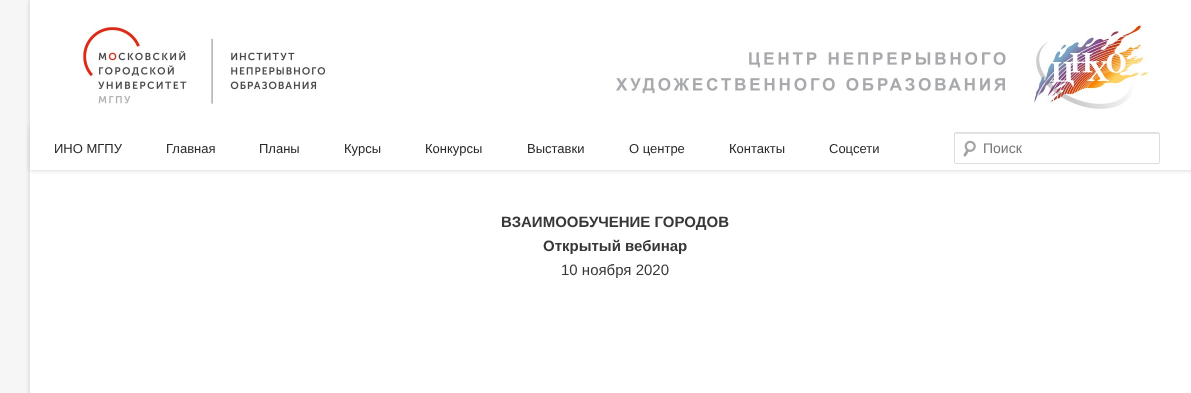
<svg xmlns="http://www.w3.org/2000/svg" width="1191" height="393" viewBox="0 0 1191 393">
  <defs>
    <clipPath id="clip1"><path d="M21 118H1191V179H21ZM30 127H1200V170H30Z" clip-rule="evenodd"/></clipPath>
  </defs>
  <rect width="100%" height="100%" fill="rgb(246,246,246)"/>
  <rect x="30" y="0" width="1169" height="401" fill="rgb(204,204,204)" filter="blur(2.5px)"/>
  <rect x="30" y="0" width="1161" height="393" fill="rgb(255,255,255)"/>
  <g clip-path="url(#clip1)">
    <rect x="30" y="127" width="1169" height="43" fill="rgb(204,204,204)" filter="blur(2.5px)"/>
  </g>
  <image x="30" y="24" width="1161" height="103" href="pic1.png"/>
  <g font-family="Liberation Sans" font-size="13" fill="rgb(39,39,39)">
    <text x="54" y="153">ИНО МГПУ</text>
    <text x="166" y="153">Главная</text>
    <text x="259" y="153">Планы</text>
    <text x="344" y="153">Курсы</text>
    <text x="425" y="153">Конкурсы</text>
    <text x="527" y="153">Выставки</text>
    <text x="629" y="153">О центре</text>
    <text x="729" y="153">Контакты</text>
    <text x="829" y="153">Соцсети</text>
  </g>
  <image x="963" y="140" width="13" height="17" href="pic2.png"/>
  <path d="M956 134H1159V135V133H1158H956C955 133 955 134 955 135C955 134 955 134 956 134Z" fill="rgb(230,230,230)"/>
  <rect x="954.5" y="132.5" width="205" height="31" rx="1.5" fill="none" stroke="rgb(221,221,221)"/>
  <text x="983" y="153" font-family="Liberation Sans" font-size="14" fill="rgb(117,117,117)">Поиск</text>
  <g font-family="Liberation Sans" font-size="15" font-weight="bold" fill="rgb(55,55,55)">
    <text x="501" y="227">ВЗАИМООБУЧЕНИЕ ГОРОДОВ</text>
    <text x="543" y="251">Открытый вебинар</text>
  </g>
  <text x="561" y="275" font-family="Liberation Sans" font-size="15" fill="rgb(55,55,55)">10 ноября 2020</text>
</svg>
